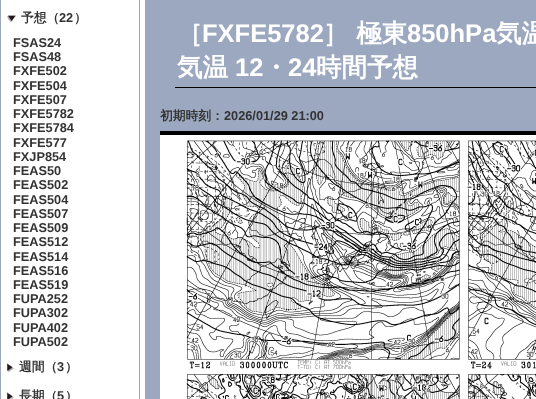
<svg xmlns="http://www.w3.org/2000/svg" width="536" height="399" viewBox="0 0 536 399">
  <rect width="100%" height="100%" fill="rgb(255,255,255)"/>
  <rect x="0.5" y="-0.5" width="139" height="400" fill="none" stroke="rgb(156,168,191)"/>
  <image x="7" y="15" width="9" height="7" href="pic1.png"/>
  <text x="21" y="22" font-family="WenQuanYi Zen Hei" font-size="12.75" font-weight="bold" fill="rgb(51,51,51)">予想（</text>
  <text x="59" y="22" font-family="Liberation Sans" font-size="12.75" font-weight="bold" fill="rgb(51,51,51)">22</text>
  <text x="74" y="22" font-family="WenQuanYi Zen Hei" font-size="12.75" font-weight="bold" fill="rgb(51,51,51)">）</text>
  <g font-family="Liberation Sans" font-size="12.75" font-weight="bold" fill="rgb(51,51,51)">
    <text>
      <tspan x="13" y="47">FSAS24</tspan>
      <tspan x="13" y="61">FSAS48</tspan>
      <tspan x="13" y="75">FXFE502</tspan>
      <tspan x="13" y="90">FXFE504</tspan>
      <tspan x="13" y="104">FXFE507</tspan>
      <tspan x="13" y="118">FXFE5782</tspan>
      <tspan x="13" y="132">FXFE5784</tspan>
      <tspan x="13" y="147">FXFE577</tspan>
      <tspan x="13" y="161">FXJP854</tspan>
      <tspan x="13" y="175">FEAS50</tspan>
      <tspan x="13" y="189">FEAS502</tspan>
      <tspan x="13" y="204">FEAS504</tspan>
      <tspan x="13" y="218">FEAS507</tspan>
      <tspan x="13" y="232">FEAS509</tspan>
      <tspan x="13" y="246">FEAS512</tspan>
      <tspan x="13" y="261">FEAS514</tspan>
      <tspan x="13" y="275">FEAS516</tspan>
      <tspan x="13" y="289">FEAS519</tspan>
      <tspan x="13" y="303">FUPA252</tspan>
      <tspan x="13" y="317">FUPA302</tspan>
      <tspan x="13" y="332">FUPA402</tspan>
      <tspan x="13" y="346">FUPA502</tspan>
    </text>
  </g>
  <image x="7" y="363" width="7" height="9" href="pic2.png"/>
  <text x="19" y="371" font-family="WenQuanYi Zen Hei" font-size="12.75" font-weight="bold" fill="rgb(51,51,51)">週間（</text>
  <text x="57" y="371" font-family="Liberation Sans" font-size="12.75" font-weight="bold" fill="rgb(51,51,51)">3</text>
  <text x="65" y="371" font-family="WenQuanYi Zen Hei" font-size="12.75" font-weight="bold" fill="rgb(51,51,51)">）</text>
  <image x="7" y="392" width="7" height="7" href="pic3.png"/>
  <text x="19" y="400" font-family="WenQuanYi Zen Hei" font-size="12.75" font-weight="bold" fill="rgb(51,51,51)">長期（</text>
  <text x="57" y="400" font-family="Liberation Sans" font-size="12.75" font-weight="bold" fill="rgb(51,51,51)">5</text>
  <text x="65" y="400" font-family="WenQuanYi Zen Hei" font-size="12.75" font-weight="bold" fill="rgb(51,51,51)">）</text>
  <rect x="145" y="0" width="391" height="399" fill="rgb(156,168,191)"/>
  <rect x="175" y="87" width="361" height="1" fill="rgb(0,0,0)"/>
  <text x="177" y="42" font-family="WenQuanYi Zen Hei" font-size="25.5" font-weight="bold" fill="rgb(255,255,255)">［</text>
  <text x="202" y="42" font-family="Liberation Sans" font-size="25.5" font-weight="bold" fill="rgb(255,255,255)">FXFE5782</text>
  <text x="323" y="42" font-family="WenQuanYi Zen Hei" font-size="25.5" font-weight="bold" fill="rgb(255,255,255)">］ 極東</text>
  <text x="407" y="42" font-family="Liberation Sans" font-size="25.5" font-weight="bold" fill="rgb(255,255,255)">850hPa</text>
  <g font-family="WenQuanYi Zen Hei" font-size="25.5" font-weight="bold" fill="rgb(255,255,255)">
    <text x="496" y="42">気温</text>
    <text x="177" y="76">気温</text>
  </g>
  <text x="235" y="76" font-family="Liberation Sans" font-size="25.5" font-weight="bold" fill="rgb(255,255,255)">12</text>
  <text x="263" y="76" font-family="WenQuanYi Zen Hei" font-size="25.5" font-weight="bold" fill="rgb(255,255,255)">・</text>
  <text x="288" y="76" font-family="Liberation Sans" font-size="25.5" font-weight="bold" fill="rgb(255,255,255)">24</text>
  <text x="316" y="76" font-family="WenQuanYi Zen Hei" font-size="25.5" font-weight="bold" fill="rgb(255,255,255)">時間予想</text>
  <text x="160" y="120" font-family="WenQuanYi Zen Hei" font-size="12.75" font-weight="bold" fill="rgb(51,51,51)">初期時刻：</text>
  <text x="224" y="120" font-family="Liberation Sans" font-size="12.75" font-weight="bold" fill="rgb(51,51,51)">2026/01/29 21:00</text>
  <rect x="160" y="131" width="376" height="4" fill="rgb(0,0,0)"/>
  <image x="160" y="135" width="376" height="264" href="pic4.png"/>
</svg>
